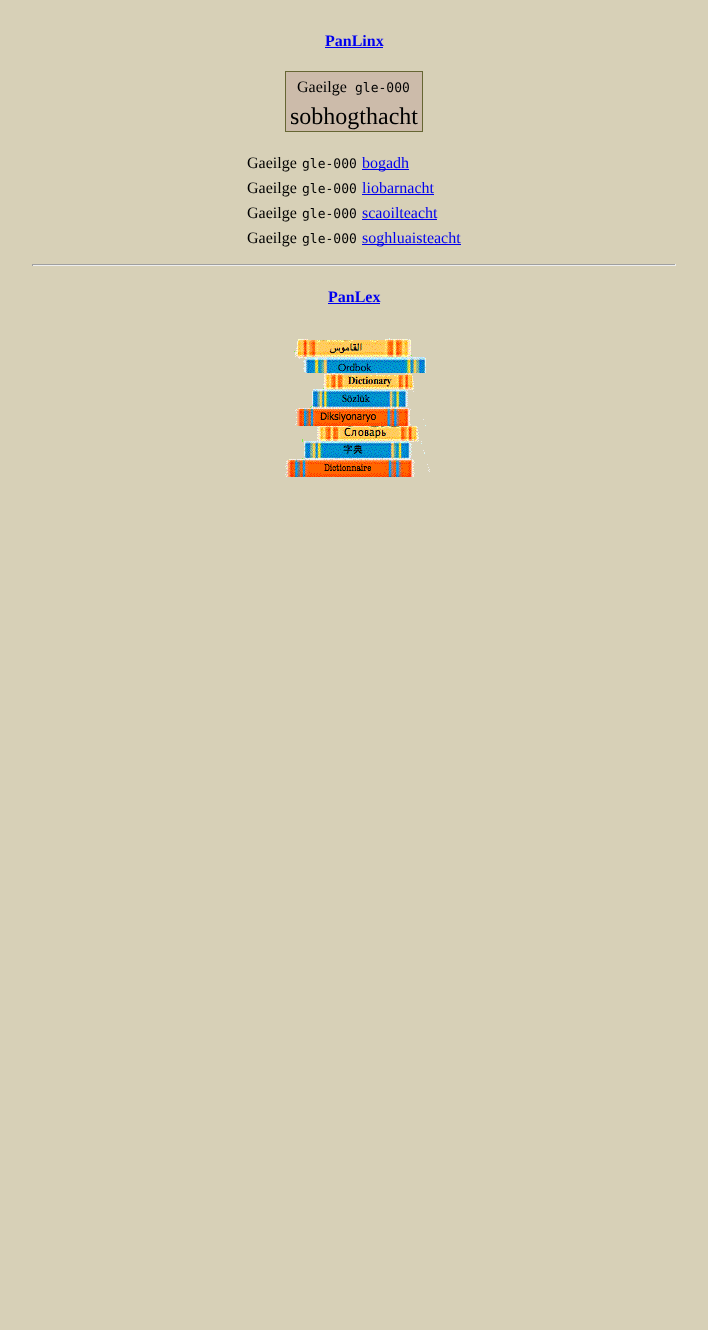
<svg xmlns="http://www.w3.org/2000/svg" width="708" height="1330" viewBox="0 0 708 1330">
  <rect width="100%" height="100%" fill="rgb(215,208,183)"/>
  <text x="325" y="46" font-family="Liberation Serif" font-size="16" font-weight="bold" fill="rgb(0,0,238)">PanLinx</text>
  <rect x="325" y="47" width="58" height="1" fill="rgb(0,0,238)"/>
  <rect x="286" y="72" width="136" height="59" fill="rgb(204,187,170)"/>
  <rect x="285" y="71" width="138" height="1" fill="rgb(102,102,51)"/>
  <rect x="422" y="71" width="1" height="61" fill="rgb(102,102,51)"/>
  <rect x="285" y="131" width="138" height="1" fill="rgb(102,102,51)"/>
  <rect x="285" y="71" width="1" height="61" fill="rgb(102,102,51)"/>
  <text x="297" y="92" font-family="Liberation Serif" font-size="16" fill="rgb(0,0,0)">Gaeilge</text>
  <text x="355" y="92" font-family="DejaVu Sans Mono" font-size="13" fill="rgb(0,0,0)">gle-000</text>
  <text x="290" y="124" font-family="Liberation Serif" font-size="24" fill="rgb(0,0,0)">sobhogthacht</text>
  <text x="247" y="168" font-family="Liberation Serif" font-size="16" fill="rgb(0,0,0)">Gaeilge</text>
  <text x="302" y="168" font-family="DejaVu Sans Mono" font-size="13" fill="rgb(0,0,0)">gle-000</text>
  <rect x="362" y="169" width="47" height="1" fill="rgb(0,0,238)"/>
  <text x="362" y="168" font-family="Liberation Serif" font-size="16" fill="rgb(0,0,238)">bogadh</text>
  <text x="247" y="193" font-family="Liberation Serif" font-size="16" fill="rgb(0,0,0)">Gaeilge</text>
  <text x="302" y="193" font-family="DejaVu Sans Mono" font-size="13" fill="rgb(0,0,0)">gle-000</text>
  <text x="362" y="193" font-family="Liberation Serif" font-size="16" fill="rgb(0,0,238)">liobarnacht</text>
  <rect x="362" y="194" width="72" height="1" fill="rgb(0,0,238)"/>
  <text x="247" y="218" font-family="Liberation Serif" font-size="16" fill="rgb(0,0,0)">Gaeilge</text>
  <text x="302" y="218" font-family="DejaVu Sans Mono" font-size="13" fill="rgb(0,0,0)">gle-000</text>
  <text x="362" y="218" font-family="Liberation Serif" font-size="16" fill="rgb(0,0,238)">scaoilteacht</text>
  <rect x="362" y="219" width="75" height="1" fill="rgb(0,0,238)"/>
  <text x="247" y="243" font-family="Liberation Serif" font-size="16" fill="rgb(0,0,0)">Gaeilge</text>
  <text x="302" y="243" font-family="DejaVu Sans Mono" font-size="13" fill="rgb(0,0,0)">gle-000</text>
  <rect x="362" y="244" width="99" height="1" fill="rgb(0,0,238)"/>
  <text x="362" y="243" font-family="Liberation Serif" font-size="16" fill="rgb(0,0,238)">soghluaisteacht</text>
  <rect x="32" y="264" width="644" height="1" fill="rgb(159,159,159)"/>
  <rect x="675" y="264" width="1" height="2" fill="rgb(238,238,238)"/>
  <rect x="32" y="265" width="644" height="1" fill="rgb(238,238,238)"/>
  <rect x="32" y="264" width="1" height="2" fill="rgb(159,159,159)"/>
  <text x="328" y="302" font-family="Liberation Serif" font-size="16" font-weight="bold" fill="rgb(0,0,238)">PanLex</text>
  <rect x="328" y="303" width="52" height="1" fill="rgb(0,0,238)"/>
  <image x="285" y="338" width="145" height="139" href="pic1.png"/>
</svg>
